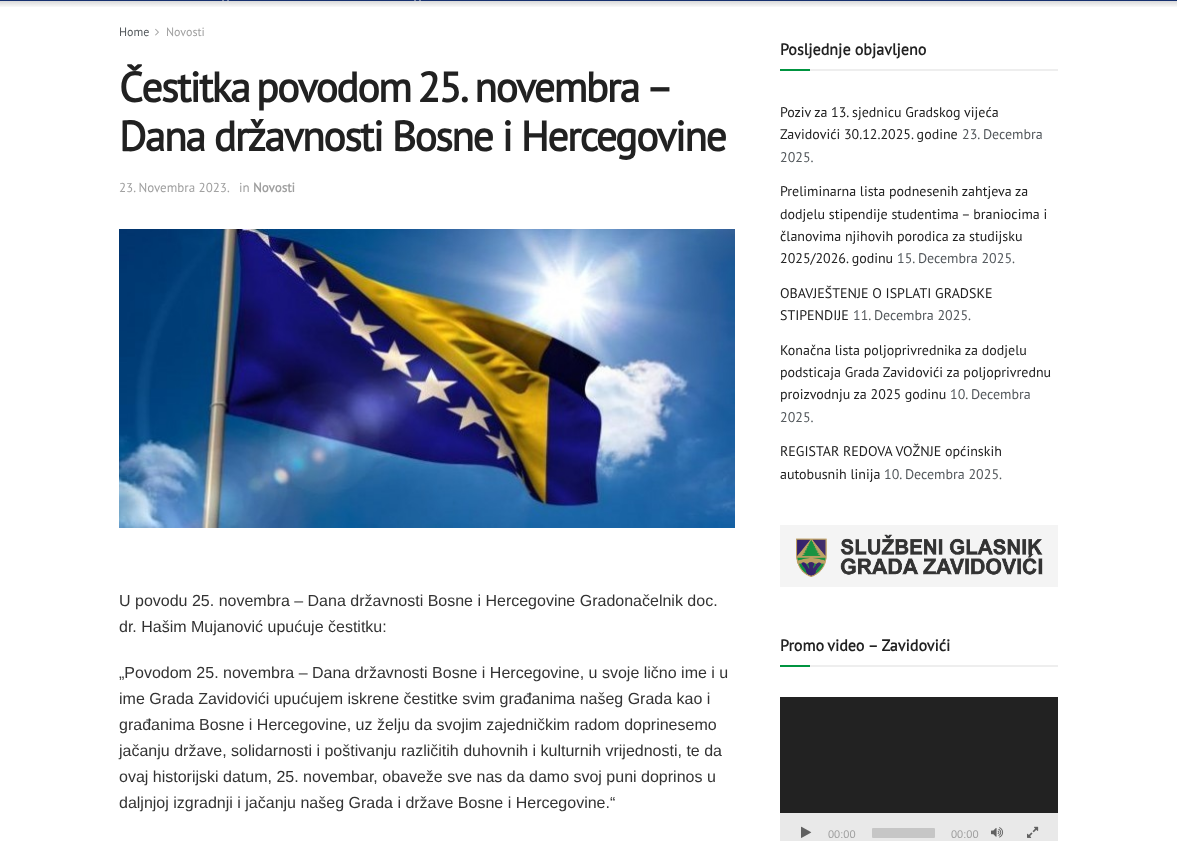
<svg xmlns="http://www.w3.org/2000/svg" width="1177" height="841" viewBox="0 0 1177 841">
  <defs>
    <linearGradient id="g1" gradientUnits="userSpaceOnUse" x1="589" y1="1" x2="589" y2="8"><stop offset="0" stop-color="rgb(0,0,0)" stop-opacity="0.15"/><stop offset="1" stop-color="rgb(0,0,0)" stop-opacity="0"/></linearGradient>
  </defs>
  <rect width="100%" height="100%" fill="rgb(255,255,255)"/>
  <rect x="0" y="0" width="1177" height="1" fill="rgb(22,48,111)"/>
  <image x="222" y="0" width="7" height="1" href="pic1.png"/>
  <image x="414" y="0" width="7" height="1" href="pic1.png"/>
  <rect x="0" y="1" width="1177" height="6" fill="url(#g1)"/>
  <text x="119" y="36" font-family="PT Sans" font-size="12" fill="rgb(83,88,92)">Home</text>
  <image x="155" y="28" width="4" height="8" href="pic2.png"/>
  <text x="166" y="36" font-family="PT Sans" font-size="12" fill="rgb(160,160,160)">Novosti</text>
  <g font-family="PT Sans" font-size="42" font-weight="bold" letter-spacing="-1.7" fill="rgb(33,33,33)">
    <text>
      <tspan x="119" y="102" word-spacing="-2.5">Čestitka povodom 25. novembra –</tspan>
      <tspan x="119" y="151">Dana državnosti Bosne i Hercegovine</tspan>
    </text>
  </g>
  <g font-family="PT Sans" font-size="13" fill="rgb(160,160,160)">
    <text x="119" y="192">23. Novembra 2023.</text>
    <text x="239" y="192">in</text>
  </g>
  <text x="253" y="192" font-family="PT Sans" font-size="13" font-weight="bold" fill="rgb(160,160,160)">Novosti</text>
  <image x="119" y="229" width="616" height="299" href="pic3.png"/>
  <g font-family="Liberation Sans" font-size="16" fill="rgb(51,51,51)">
    <text>
      <tspan x="119" y="606">U povodu 25. novembra – Dana državnosti Bosne i Hercegovine Gradonačelnik doc.</tspan>
      <tspan x="119" y="632">dr. Hašim Mujanović upućuje čestitku:</tspan>
    </text>
    <text>
      <tspan x="119" y="678">„Povodom 25. novembra – Dana državnosti Bosne i Hercegovine, u svoje lično ime i u</tspan>
      <tspan x="119" y="704">ime Grada Zavidovići upućujem iskrene čestitke svim građanima našeg Grada kao i</tspan>
      <tspan x="119" y="730">građanima Bosne i Hercegovine, uz želju da svojim zajedničkim radom doprinesemo</tspan>
      <tspan x="119" y="756">jačanju države, solidarnosti i poštivanju različitih duhovnih i kulturnih vrijednosti, te da</tspan>
      <tspan x="119" y="782">ovaj historijski datum, 25. novembar, obaveže sve nas da damo svoj puni doprinos u</tspan>
      <tspan x="119" y="808">daljnjoj izgradnji i jačanju našeg Grada i države Bosne i Hercegovine.“</tspan>
    </text>
  </g>
  <rect x="810" y="69" width="248" height="2" fill="rgb(238,238,238)"/>
  <text x="780" y="55" font-family="PT Sans" font-size="16" font-weight="bold" fill="rgb(33,33,33)">Posljednje objavljeno</text>
  <rect x="780" y="69" width="30" height="2" fill="rgb(0,148,64)"/>
  <g font-family="PT Sans" font-size="14" fill="rgb(33,33,33)">
    <text>
      <tspan x="780" y="117">Poziv za 13. sjednicu Gradskog vijeća</tspan>
      <tspan x="780" y="139">Zavidovići 30.12.2025. godine</tspan>
    </text>
  </g>
  <g font-family="PT Sans" font-size="14" fill="rgb(83,88,92)">
    <text x="962" y="139">23. Decembra</text>
    <text x="780" y="162">2025.</text>
  </g>
  <g font-family="PT Sans" font-size="14" fill="rgb(33,33,33)">
    <text>
      <tspan x="780" y="196">Preliminarna lista podnesenih zahtjeva za</tspan>
      <tspan x="780" y="219">dodjelu stipendije studentima – braniocima i</tspan>
      <tspan x="780" y="241">članovima njihovih porodica za studijsku</tspan>
      <tspan x="780" y="263">2025/2026. godinu</tspan>
    </text>
  </g>
  <text x="897" y="263" font-family="PT Sans" font-size="14" fill="rgb(83,88,92)">15. Decembra 2025.</text>
  <g font-family="PT Sans" font-size="14" fill="rgb(33,33,33)">
    <text>
      <tspan x="780" y="298">OBAVJEŠTENJE O ISPLATI GRADSKE</tspan>
      <tspan x="780" y="320">STIPENDIJE</tspan>
    </text>
  </g>
  <text x="853" y="320" font-family="PT Sans" font-size="14" fill="rgb(83,88,92)">11. Decembra 2025.</text>
  <g font-family="PT Sans" font-size="14" fill="rgb(33,33,33)">
    <text>
      <tspan x="780" y="355">Konačna lista poljoprivrednika za dodjelu</tspan>
      <tspan x="780" y="377">podsticaja Grada Zavidovići za poljoprivrednu</tspan>
      <tspan x="780" y="399">proizvodnju za 2025 godinu</tspan>
    </text>
  </g>
  <g font-family="PT Sans" font-size="14" fill="rgb(83,88,92)">
    <text x="950" y="399">10. Decembra</text>
    <text x="780" y="422">2025.</text>
  </g>
  <g font-family="PT Sans" font-size="14" fill="rgb(33,33,33)">
    <text>
      <tspan x="780" y="456">REGISTAR REDOVA VOŽNJE općinskih</tspan>
      <tspan x="780" y="479">autobusnih linija</tspan>
    </text>
  </g>
  <text x="884" y="479" font-family="PT Sans" font-size="14" fill="rgb(83,88,92)">10. Decembra 2025.</text>
  <image x="780" y="525" width="278" height="62" href="pic4.png"/>
  <rect x="810" y="665" width="248" height="2" fill="rgb(238,238,238)"/>
  <text x="780" y="651" word-spacing="-1" font-family="PT Sans" font-size="16" font-weight="bold" fill="rgb(33,33,33)">Promo video – Zavidovići</text>
  <rect x="780" y="665" width="30" height="2" fill="rgb(0,148,64)"/>
  <rect x="780" y="697" width="278" height="116" fill="rgb(34,34,34)"/>
  <rect x="780" y="813" width="278" height="28" fill="rgb(233,233,233)"/>
  <image x="801" y="826" width="11" height="12" href="pic5.png"/>
  <text x="828" y="838" font-family="Liberation Sans" font-size="11" fill="rgb(160,160,160)">00:00</text>
  <rect x="872" y="828" width="63" height="10" rx="1" fill="rgb(198,198,198)"/>
  <text x="951" y="838" font-family="Liberation Sans" font-size="11" fill="rgb(160,160,160)">00:00</text>
  <image x="991" y="827" width="13" height="11" href="pic6.png"/>
  <image x="1027" y="826" width="12" height="12" href="pic7.png"/>
</svg>
